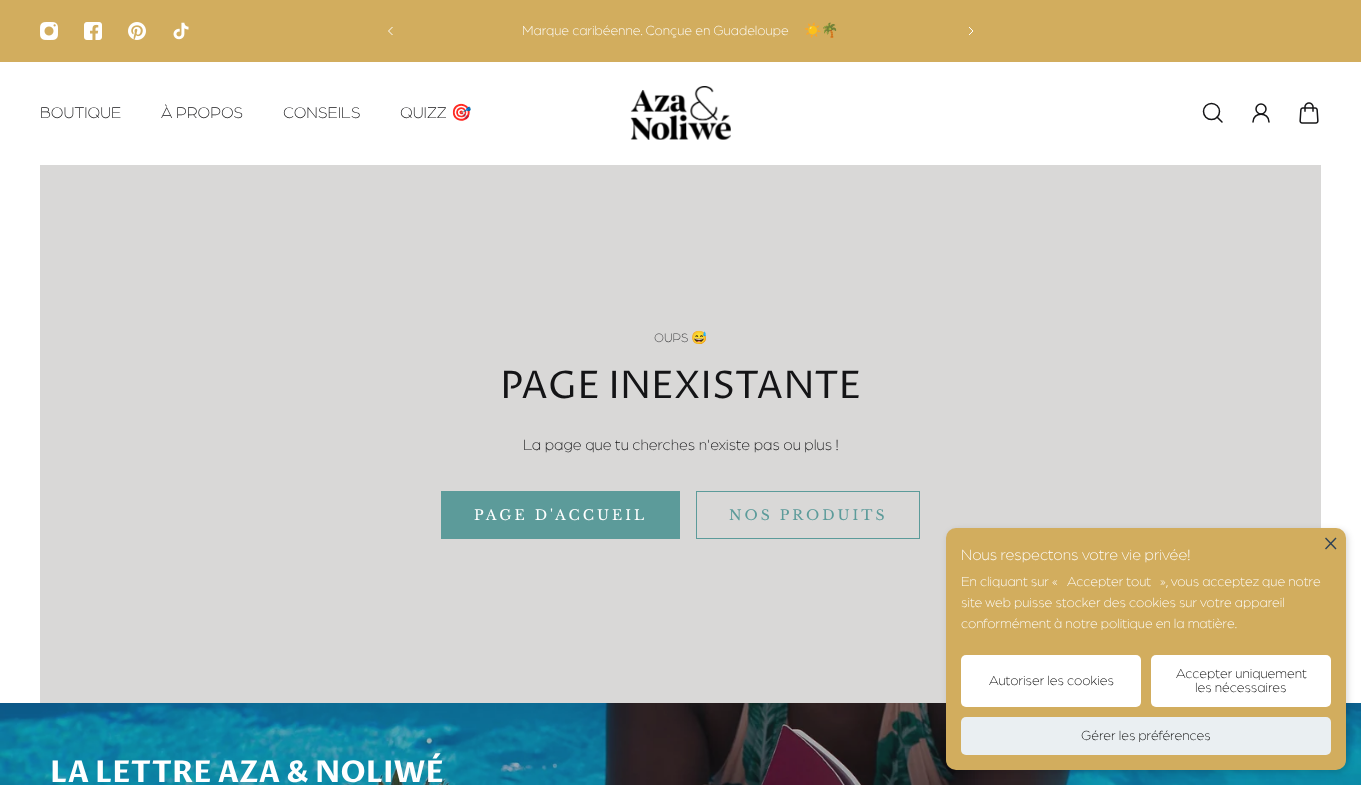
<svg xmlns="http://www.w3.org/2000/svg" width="1361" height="785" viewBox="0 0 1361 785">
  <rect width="100%" height="100%" fill="rgb(255,255,255)"/>
  <rect x="0" y="0" width="1361" height="62" fill="rgb(210,173,94)"/>
  <image x="40" y="22" width="18" height="18" href="pic1.png"/>
  <image x="84" y="22" width="18" height="18" href="pic2.png"/>
  <image x="128" y="22" width="18" height="18" href="pic3.png"/>
  <image x="173" y="22" width="16" height="18" href="pic4.png"/>
  <path d="M392.5 27L388.5 31L392.5 35" fill="none" stroke="rgb(255,255,255)"/>
  <text x="522" y="35" font-family="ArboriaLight" font-size="14" font-weight="300" fill="rgb(255,255,255)">Marque caribéenne. Conçue en Guadeloupe</text>
  <text x="804" y="35" font-family="Noto Color Emoji" font-size="14" fill="rgb(255,255,255)">☀️🌴</text>
  <path d="M969 27L973 31L969 35" fill="none" stroke="rgb(255,255,255)"/>
  <g font-family="ArboriaLight" font-size="16.5" font-weight="300" fill="rgb(20,20,22)">
    <text x="40" y="118">BOUTIQUE</text>
    <text x="161" y="118">À PROPOS</text>
    <text x="283" y="118">CONSEILS</text>
    <text x="400" y="118">QUIZZ</text>
  </g>
  <text x="451" y="118" font-family="Noto Color Emoji" font-size="16.5" fill="rgb(20,20,22)">🎯</text>
  <image x="630" y="86" width="101" height="54" href="pic5.png"/>
  <circle cx="1211.5" cy="111.5" r="8" fill="none" stroke="rgb(20,20,22)" stroke-width="1.5"/>
  <path d="M1217 117L1222 122" fill="none" stroke="rgb(20,20,22)" stroke-width="1.5" stroke-linecap="round" stroke-linejoin="round"/>
  <circle cx="1261" cy="109" r="5" fill="none" stroke="rgb(20,20,22)" stroke-width="1.5"/>
  <path d="M1269 122C1269 111.5 1253 111.5 1253 122" fill="none" stroke="rgb(20,20,22)" stroke-width="1.5" stroke-linecap="round" stroke-linejoin="round"/>
  <image x="1299" y="102" width="20" height="22" href="pic6.png"/>
  <rect x="40" y="165" width="1281" height="538" fill="rgb(217,216,215)"/>
  <text x="654" y="342" font-family="ArboriaLight" font-size="13" font-weight="300" fill="rgb(59,59,61)">OUPS</text>
  <text x="691" y="342" font-family="Noto Color Emoji" font-size="13" fill="rgb(59,59,61)">😅</text>
  <text x="500" y="398" font-family="Proza Libre" font-size="38" fill="rgb(20,20,22)">PAGE INEXISTANTE</text>
  <text x="523" y="450" font-family="ArboriaLight" font-size="16" font-weight="300" fill="rgb(20,20,22)">La page que tu cherches n'existe pas ou plus !</text>
  <rect x="441" y="491" width="239" height="48" fill="rgb(92,155,154)"/>
  <text x="474" y="520" font-family="Libre Baskerville" font-size="14" letter-spacing="3" fill="rgb(255,255,255)">PAGE D'ACCUEIL</text>
  <rect x="696.5" y="491.5" width="223" height="47" fill="none" stroke="rgb(92,155,154)"/>
  <text x="729" y="520" font-family="Libre Baskerville" font-size="14" letter-spacing="3" fill="rgb(92,155,154)">NOS PRODUITS</text>
  <image x="0" y="703" width="1361" height="82" href="pic7.png"/>
  <rect x="948" y="530" width="400" height="242" rx="10" fill="rgba(0,0,0,0.15)" filter="blur(3px)"/>
  <rect x="946" y="528" width="400" height="242" rx="10" fill="rgb(210,173,94)"/>
  <path d="M1335.5 537.5L1336.5 538.5L1326 549.5L1325 548.5Z" fill="rgb(45,65,86)"/>
  <path d="M1325 538.5L1326 537.5L1336.5 548.5L1335.5 549.5Z" fill="rgb(45,65,86)"/>
  <text x="961" y="560" font-family="ArboriaLight" font-size="16" font-weight="300" fill="rgb(255,255,255)">Nous respectons votre vie privée!</text>
  <g font-family="ArboriaLight" font-size="14" font-weight="300" fill="rgb(255,255,255)">
    <text x="961" y="586">En cliquant sur «</text>
    <text x="1067" y="586">Accepter tout</text>
    <text x="1160" y="586">», vous acceptez que notre</text>
    <text>
      <tspan x="961" y="607">site web puisse stocker des cookies sur votre appareil</tspan>
      <tspan x="961" y="628">conformément à notre politique en la matière.</tspan>
    </text>
  </g>
  <rect x="961" y="655" width="180" height="52" rx="5" fill="rgb(255,255,255)"/>
  <text x="989" y="685" font-family="ArboriaLight" font-size="14" font-weight="300" fill="rgb(0,0,0)">Autoriser les cookies</text>
  <rect x="1151" y="655" width="180" height="52" rx="5" fill="rgb(255,255,255)"/>
  <g font-family="ArboriaLight" font-size="14" font-weight="300" fill="rgb(0,0,0)">
    <text x="1176" y="678">Accepter uniquement</text>
    <text x="1195" y="692">les nécessaires</text>
  </g>
  <rect x="961" y="717" width="370" height="38" rx="5" fill="rgb(234,239,242)"/>
  <text x="1081" y="740" font-family="ArboriaLight" font-size="14" font-weight="300" fill="rgb(0,0,0)">Gérer les préférences</text>
  <text x="50" y="782" font-family="Proza Libre" font-size="30" font-weight="bold" fill="rgb(255,255,255)">LA LETTRE AZA &amp; NOLIWÉ</text>
</svg>
